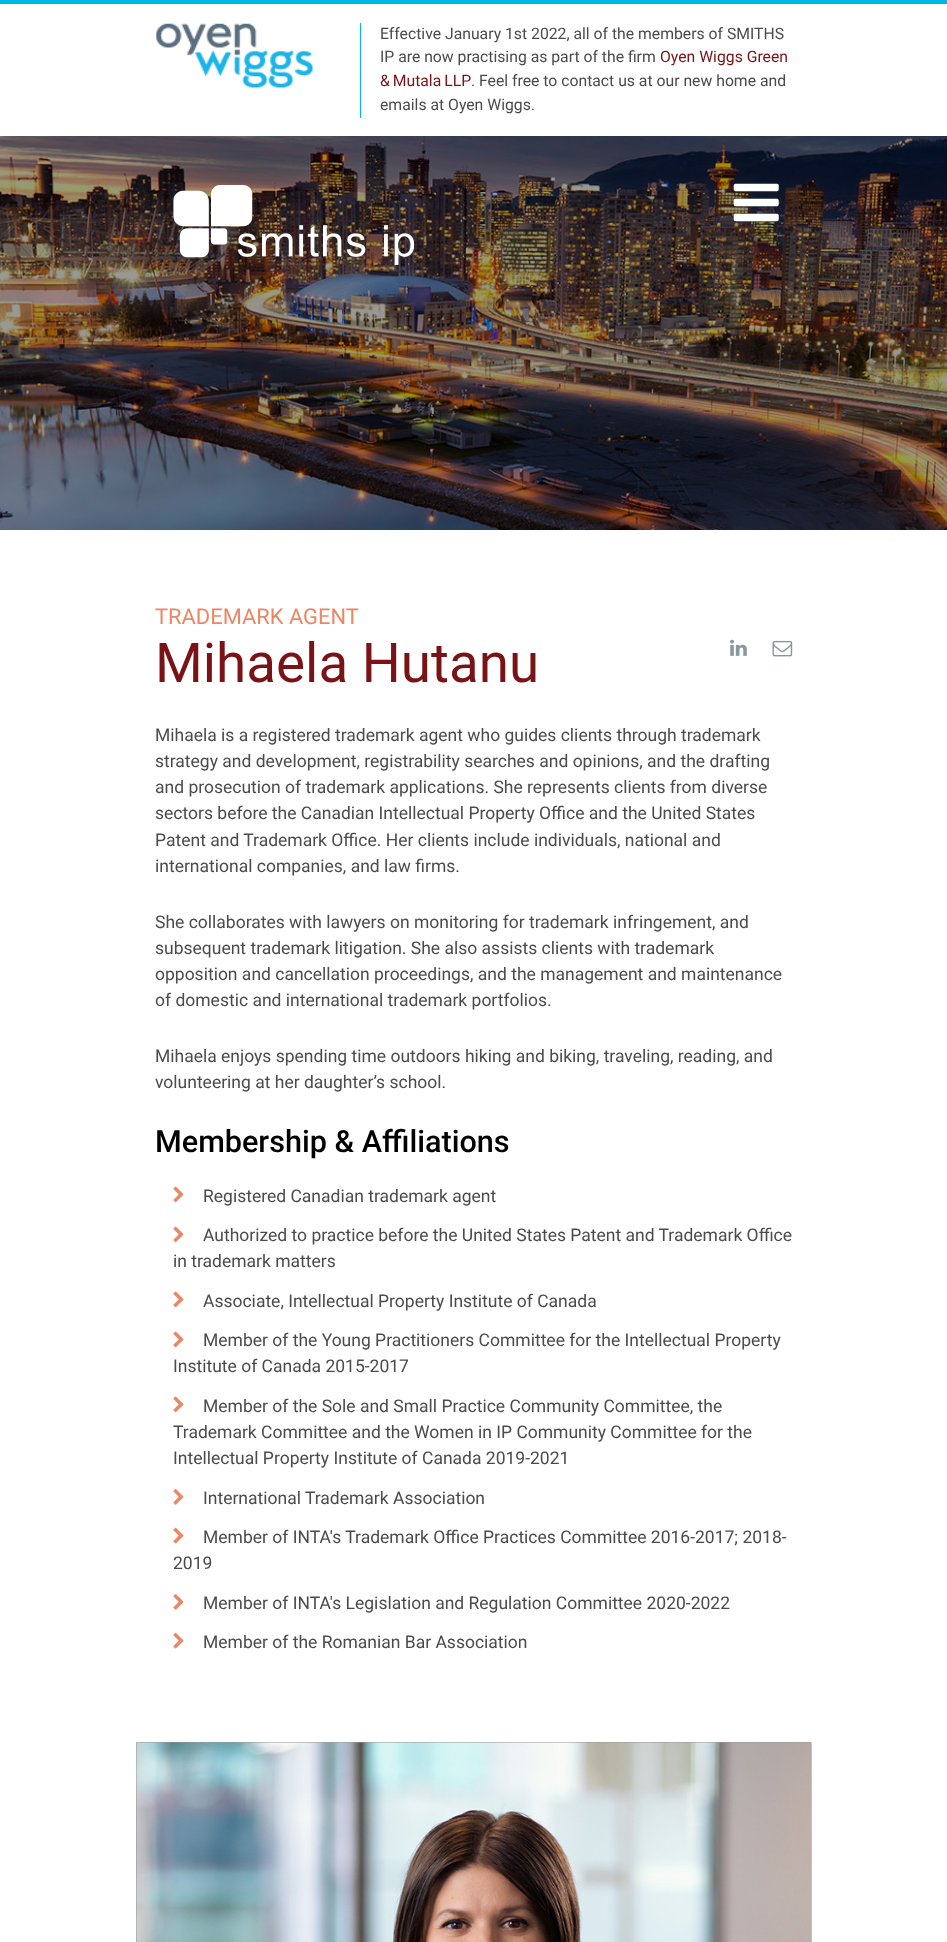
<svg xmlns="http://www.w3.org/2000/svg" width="947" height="1942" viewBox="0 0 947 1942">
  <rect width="100%" height="100%" fill="rgb(255,255,255)"/>
  <image x="0" y="136" width="947" height="394" href="pic1.png"/>
  <rect x="0" y="0" width="947" height="4" fill="rgb(0,184,231)"/>
  <rect x="360" y="23" width="1" height="95" fill="rgb(0,184,231)"/>
  <image x="156" y="23" width="157" height="65" href="pic2.png"/>
  <g font-family="Roboto" font-size="15.75" fill="rgb(75,75,76)">
    <text>
      <tspan x="380" y="39">Effective January 1st 2022, all of the members of SMITHS</tspan>
      <tspan x="380" y="62">IP are now practising as part of the firm</tspan>
    </text>
  </g>
  <g font-family="Roboto" font-size="15.75" fill="rgb(122,19,22)">
    <text x="660" y="62">Oyen Wiggs Green</text>
    <text x="380" y="86" word-spacing="-1">&amp; Mutala LLP</text>
  </g>
  <g font-family="Roboto" font-size="15.75" fill="rgb(75,75,76)">
    <text x="471" y="86">. Feel free to contact us at our new home and</text>
    <text x="380" y="110">emails at Oyen Wiggs.</text>
  </g>
  <image x="173" y="185" width="242" height="80" href="pic3.png"/>
  <image x="733" y="183" width="46" height="39" href="pic4.png"/>
  <text x="155" y="624" font-family="Roboto" font-size="21.9" fill="rgb(234,136,101)">TRADEMARK AGENT</text>
  <text x="155" y="682" font-family="Roboto" font-size="54.75" fill="rgb(122,19,22)">Mihaela Hutanu</text>
  <image x="730" y="639" width="17" height="17" href="pic5.png"/>
  <image x="772" y="640" width="21" height="17" href="pic6.png"/>
  <g font-family="Roboto" font-size="17.5" fill="rgb(75,75,76)">
    <text>
      <tspan x="155" y="741">Mihaela is a registered trademark agent who guides clients through trademark</tspan>
      <tspan x="155" y="767">strategy and development, registrability searches and opinions, and the drafting</tspan>
      <tspan x="155" y="793">and prosecution of trademark applications. She represents clients from diverse</tspan>
      <tspan x="155" y="819">sectors before the Canadian Intellectual Property Office and the United States</tspan>
      <tspan x="155" y="846">Patent and Trademark Office. Her clients include individuals, national and</tspan>
      <tspan x="155" y="872">international companies, and law firms.</tspan>
    </text>
    <text>
      <tspan x="155" y="928">She collaborates with lawyers on monitoring for trademark infringement, and</tspan>
      <tspan x="155" y="954">subsequent trademark litigation. She also assists clients with trademark</tspan>
      <tspan x="155" y="980">opposition and cancellation proceedings, and the management and maintenance</tspan>
      <tspan x="155" y="1006">of domestic and international trademark portfolios.</tspan>
    </text>
    <text>
      <tspan x="155" y="1062">Mihaela enjoys spending time outdoors hiking and biking, traveling, reading, and</tspan>
      <tspan x="155" y="1088">volunteering at her daughter’s school.</tspan>
    </text>
  </g>
  <text x="155" y="1152" font-family="Roboto" font-size="30.6" font-weight="500" fill="rgb(0,0,0)">Membership &amp; Affiliations</text>
  <image x="173" y="1186" width="11" height="17" href="pic7.png"/>
  <text x="203" y="1202" font-family="Roboto" font-size="17.5" fill="rgb(75,75,76)">Registered Canadian trademark agent</text>
  <image x="173" y="1226" width="11" height="17" href="pic7.png"/>
  <g font-family="Roboto" font-size="17.5" fill="rgb(75,75,76)">
    <text x="203" y="1241">Authorized to practice before the United States Patent and Trademark Office</text>
    <text x="173" y="1267">in trademark matters</text>
  </g>
  <image x="173" y="1291" width="11" height="17" href="pic7.png"/>
  <text x="203" y="1307" font-family="Roboto" font-size="17.5" fill="rgb(75,75,76)">Associate, Intellectual Property Institute of Canada</text>
  <image x="173" y="1331" width="11" height="17" href="pic7.png"/>
  <g font-family="Roboto" font-size="17.5" fill="rgb(75,75,76)">
    <text x="203" y="1346">Member of the Young Practitioners Committee for the Intellectual Property</text>
    <text x="173" y="1372">Institute of Canada 2015-2017</text>
  </g>
  <image x="173" y="1396" width="11" height="17" href="pic7.png"/>
  <g font-family="Roboto" font-size="17.5" fill="rgb(75,75,76)">
    <text x="203" y="1412">Member of the Sole and Small Practice Community Committee, the</text>
    <text>
      <tspan x="173" y="1438">Trademark Committee and the Women in IP Community Committee for the</tspan>
      <tspan x="173" y="1464">Intellectual Property Institute of Canada 2019-2021</tspan>
    </text>
  </g>
  <image x="173" y="1489" width="11" height="16" href="pic8.png"/>
  <text x="203" y="1504" font-family="Roboto" font-size="17.5" fill="rgb(75,75,76)">International Trademark Association</text>
  <image x="173" y="1527" width="11" height="17" href="pic9.png"/>
  <g font-family="Roboto" font-size="17.5" fill="rgb(75,75,76)">
    <text x="203" y="1543">Member of INTA's Trademark Office Practices Committee 2016-2017; 2018-</text>
    <text x="173" y="1569">2019</text>
  </g>
  <image x="173" y="1594" width="11" height="16" href="pic8.png"/>
  <text x="203" y="1609" font-family="Roboto" font-size="17.5" fill="rgb(75,75,76)">Member of INTA's Legislation and Regulation Committee 2020-2022</text>
  <image x="173" y="1632" width="11" height="17" href="pic9.png"/>
  <text x="203" y="1648" font-family="Roboto" font-size="17.5" fill="rgb(75,75,76)">Member of the Romanian Bar Association</text>
  <image x="136" y="1742" width="676" height="200" href="pic10.png"/>
  <image x="136" y="1742" width="676" height="200" href="pic11.png"/>
</svg>
